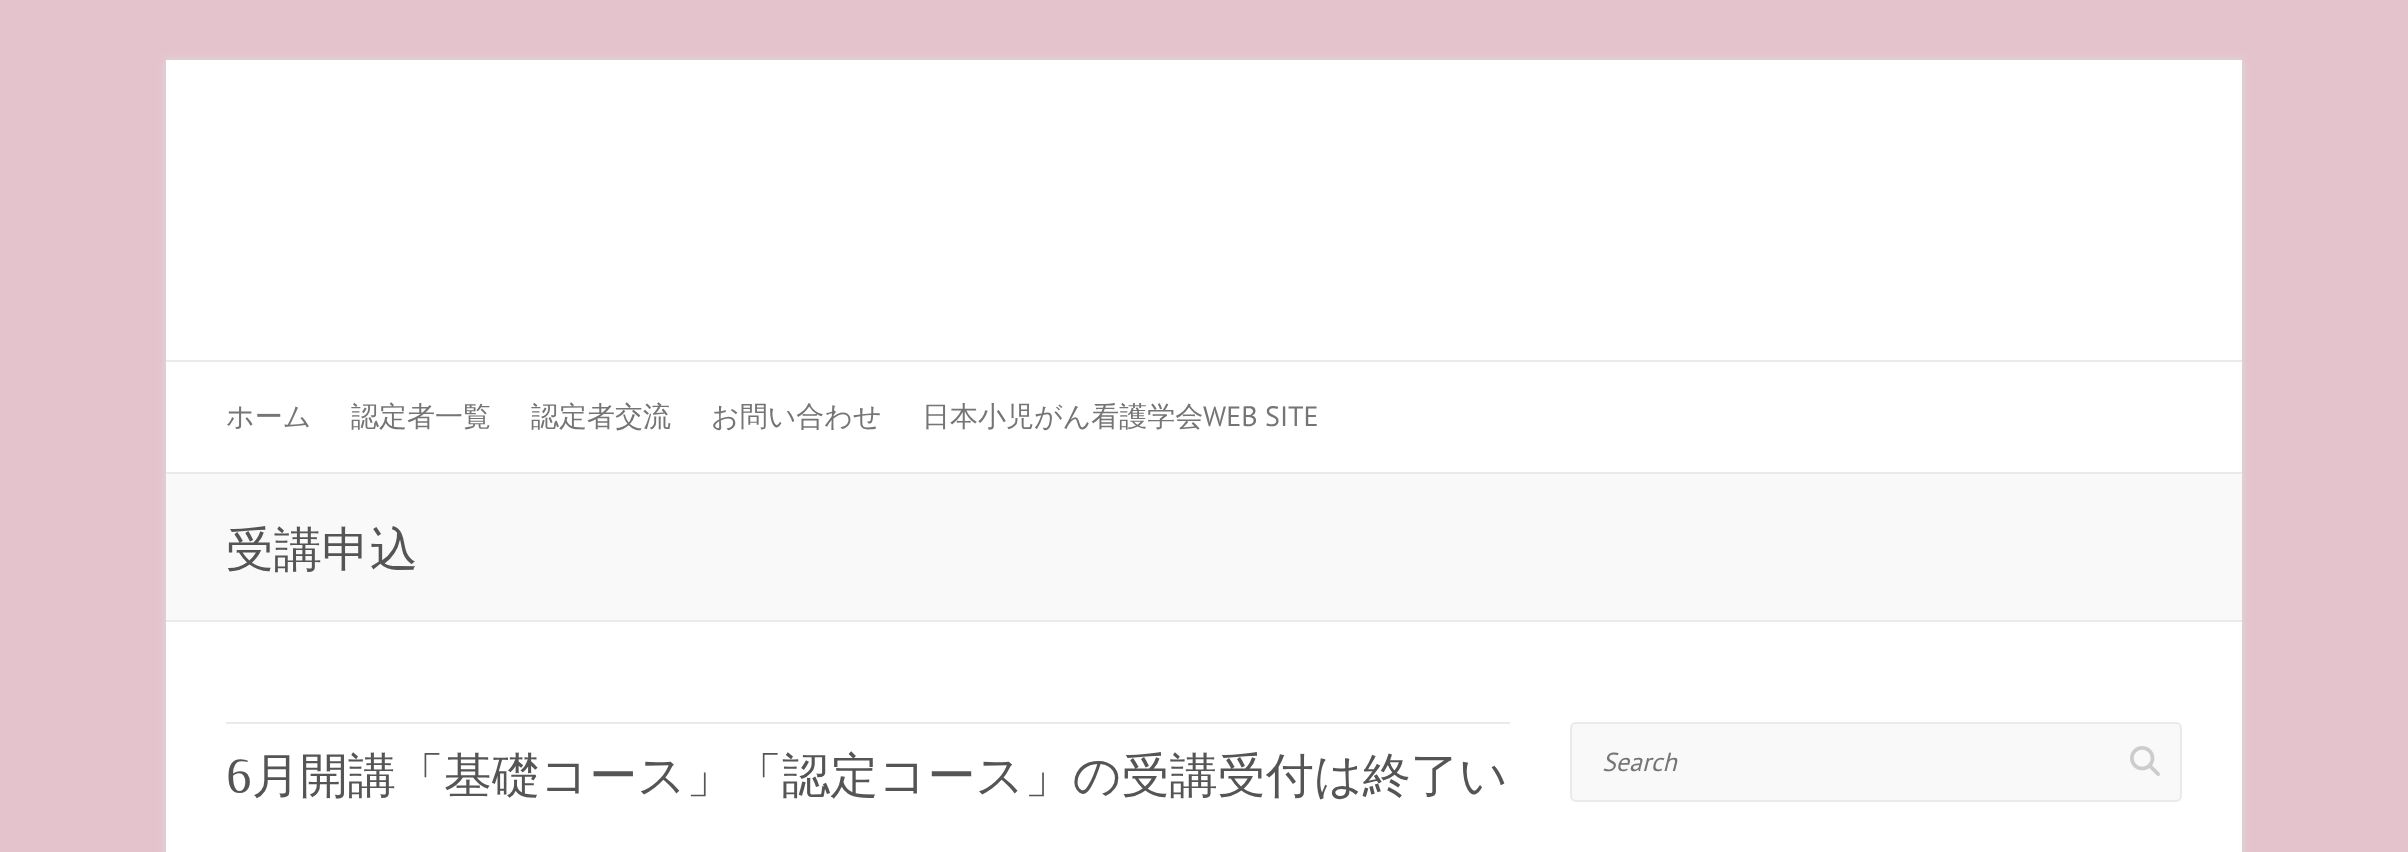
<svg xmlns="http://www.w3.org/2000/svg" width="2408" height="852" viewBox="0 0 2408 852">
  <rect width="100%" height="100%" fill="rgb(229,195,205)"/>
  <rect x="166" y="60" width="2076" height="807" fill="rgb(221,221,221)" filter="blur(5px)"/>
  <rect x="166" y="60" width="2076" height="792" fill="rgb(255,255,255)"/>
  <rect x="166" y="360" width="2076" height="2" fill="rgb(234,234,234)"/>
  <rect x="166" y="472" width="2076" height="2" fill="rgb(234,234,234)"/>
  <g font-family="WenQuanYi Zen Hei" font-size="28" font-weight="500" fill="rgb(117,117,117)">
    <text x="226" y="426">ホーム</text>
    <text x="351" y="426">認定者一覧</text>
    <text x="531" y="426">認定者交流</text>
    <text x="711" y="426">お問い合わせ</text>
    <text x="922" y="426">日本小児がん看護学会</text>
  </g>
  <text x="1203" y="426" font-family="PT Sans" font-size="28" fill="rgb(117,117,117)">WEB SITE</text>
  <rect x="166" y="474" width="2076" height="146" fill="rgb(249,249,249)"/>
  <rect x="166" y="620" width="2076" height="2" fill="rgb(234,234,234)"/>
  <text x="226" y="566" font-family="WenQuanYi Zen Hei" font-size="48" font-weight="500" fill="rgb(85,85,85)">受講申込</text>
  <rect x="226" y="722" width="1284" height="2" fill="rgb(234,234,234)"/>
  <text x="226" y="792" font-family="Philosopher" font-size="48" fill="rgb(85,85,85)">6</text>
  <text x="252" y="792" font-family="WenQuanYi Zen Hei" font-size="48" font-weight="500" fill="rgb(85,85,85)">月開講「基礎コース」「認定コース」の受講受付は終了い</text>
  <rect x="1570" y="722" width="612" height="80" rx="6" fill="rgb(249,249,249)"/>
  <image x="2130" y="746" width="30" height="30" href="pic1.png"/>
  <rect x="1571" y="723" width="610" height="78" rx="5" fill="none" stroke="rgb(234,234,234)" stroke-width="2"/>
  <text x="1602" y="771" font-family="PT Sans" font-size="26" font-style="italic" fill="rgb(117,117,117)">Search</text>
</svg>
